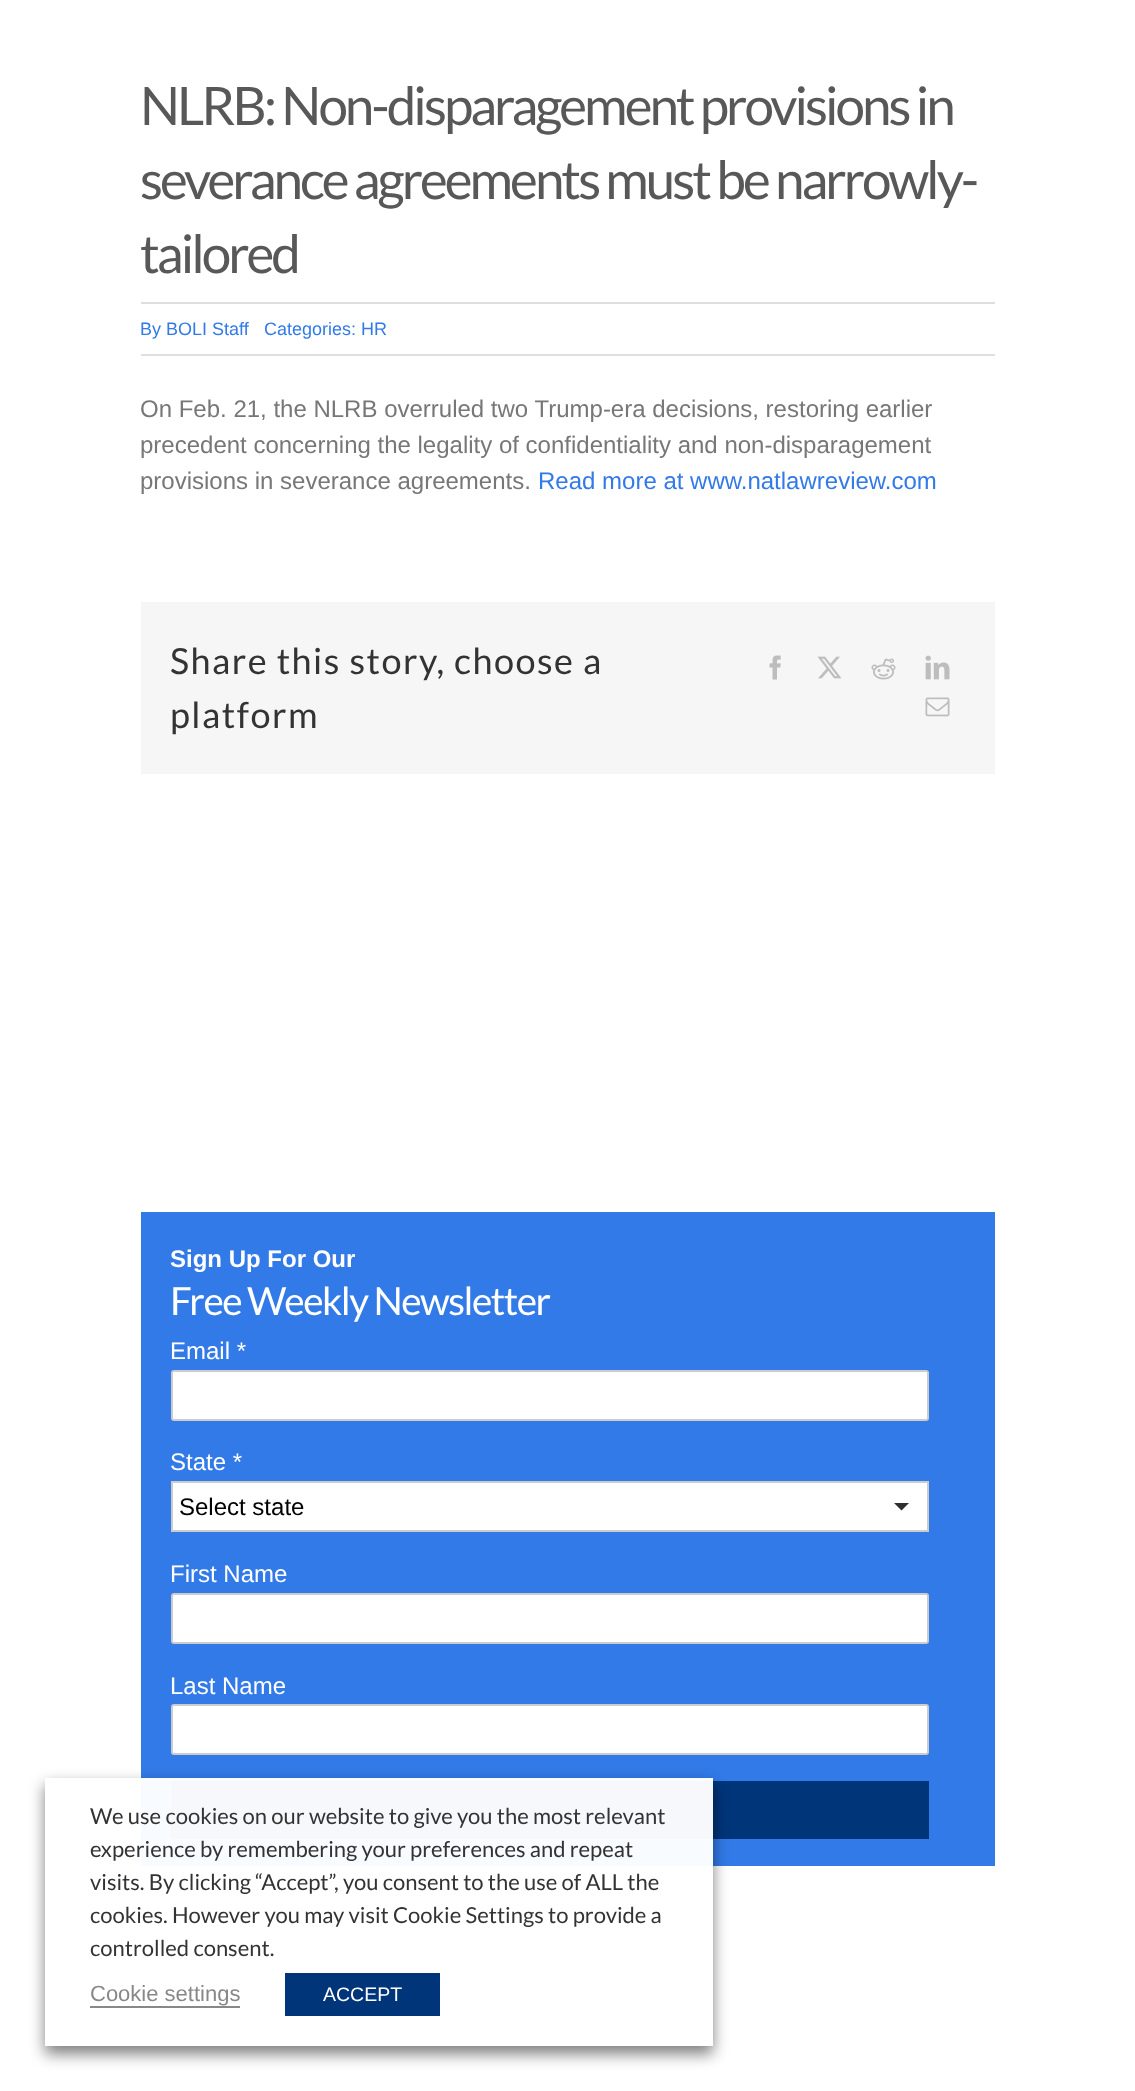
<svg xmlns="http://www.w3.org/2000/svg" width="1135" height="2091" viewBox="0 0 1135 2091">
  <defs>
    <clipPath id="clip1"><path d="M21 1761H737V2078H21ZM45 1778H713V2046H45Z" clip-rule="evenodd"/></clipPath>
  </defs>
  <rect width="100%" height="100%" fill="rgb(255,255,255)"/>
  <g font-family="Lato" font-size="53" letter-spacing="-3" fill="rgb(88,88,88)">
    <text>
      <tspan x="140" y="125">NLRB: Non-disparagement provisions in</tspan>
      <tspan x="140" y="199">severance agreements must be narrowly-</tspan>
      <tspan x="140" y="273">tailored</tspan>
    </text>
  </g>
  <rect x="141" y="302" width="854" height="2" fill="rgb(224,222,222)"/>
  <rect x="141" y="354" width="854" height="2" fill="rgb(224,222,222)"/>
  <g font-family="Liberation Sans" font-size="18" fill="rgb(50,122,231)">
    <text x="140" y="335">By BOLI Staff</text>
    <text x="264" y="335">Categories: HR</text>
  </g>
  <g font-family="Liberation Sans" font-size="24" fill="rgb(119,119,119)">
    <text>
      <tspan x="140" y="417">On Feb. 21, the NLRB overruled two Trump-era decisions, restoring earlier</tspan>
      <tspan x="140" y="453">precedent concerning the legality of confidentiality and non-disparagement</tspan>
      <tspan x="140" y="489">provisions in severance agreements.</tspan>
    </text>
  </g>
  <text x="538" y="489" font-family="Liberation Sans" font-size="24" fill="rgb(50,122,231)">Read more at www.natlawreview.com</text>
  <rect x="141" y="602" width="854" height="172" fill="rgb(246,246,246)"/>
  <g font-family="Lato" font-size="36" letter-spacing="1.5" fill="rgb(51,51,51)">
    <text>
      <tspan x="170" y="674">Share this story, choose a</tspan>
      <tspan x="170" y="728">platform</tspan>
    </text>
  </g>
  <image x="769" y="655" width="12" height="25" href="pic1.png"/>
  <image x="817" y="656" width="25" height="23" href="pic2.png"/>
  <image x="871" y="658" width="25" height="22" href="pic3.png"/>
  <image x="925" y="655" width="25" height="25" href="pic4.png"/>
  <image x="925" y="697" width="25" height="20" href="pic5.png"/>
  <rect x="141" y="1212" width="854" height="654" fill="rgb(50,122,231)"/>
  <text x="170" y="1267" font-family="Liberation Sans" font-size="24" font-weight="bold" fill="rgb(255,255,255)">Sign Up For Our</text>
  <text x="170" y="1315" font-family="Lato" font-size="38.75" letter-spacing="-1.5" fill="rgb(255,255,255)">Free Weekly Newsletter</text>
  <text x="170" y="1359" font-family="Liberation Sans" font-size="24" fill="rgb(255,255,255)">Email *</text>
  <rect x="172" y="1371" width="756" height="49" rx="2" fill="rgb(255,255,255)" stroke="rgb(204,204,204)" stroke-width="2"/>
  <text x="170" y="1470" font-family="Liberation Sans" font-size="24" fill="rgb(255,255,255)">State *</text>
  <rect x="173" y="1483" width="754" height="47" fill="rgb(255,255,255)"/>
  <path d="M894 1503L901.5 1510.5L909 1503Z" fill="rgb(47,47,47)"/>
  <rect x="172" y="1482" width="756" height="49" fill="none" stroke="rgb(204,204,204)" stroke-width="2"/>
  <text x="179" y="1515" font-family="Liberation Sans" font-size="24" fill="rgb(0,0,0)">Select state</text>
  <text x="170" y="1582" font-family="Liberation Sans" font-size="24" fill="rgb(255,255,255)">First Name</text>
  <rect x="172" y="1594" width="756" height="49" rx="2" fill="rgb(255,255,255)" stroke="rgb(204,204,204)" stroke-width="2"/>
  <text x="170" y="1694" font-family="Liberation Sans" font-size="24" fill="rgb(255,255,255)">Last Name</text>
  <rect x="172" y="1705" width="756" height="49" rx="2" fill="rgb(255,255,255)" stroke="rgb(204,204,204)" stroke-width="2"/>
  <rect x="171" y="1781" width="758" height="58" fill="rgb(0,53,122)"/>
  <g clip-path="url(#clip1)">
    <rect x="45" y="1785" width="668" height="269" fill="rgba(0,0,0,0.5)" filter="blur(7.5px)"/>
  </g>
  <rect x="141" y="1778" width="572" height="268" fill="rgba(255,255,255,0.97)"/>
  <g font-family="Lato" font-size="22" fill="rgb(51,51,51)">
    <text>
      <tspan x="90" y="1824">We use cookies on our website to give you the most relevant</tspan>
      <tspan x="90" y="1857">experience by remembering your preferences and repeat</tspan>
      <tspan x="90" y="1890">visits. By clicking “Accept”, you consent to the use of ALL the</tspan>
      <tspan x="90" y="1923">cookies. However you may visit Cookie Settings to provide a</tspan>
      <tspan x="90" y="1956">controlled consent.</tspan>
    </text>
  </g>
  <text x="90" y="2001" font-family="Liberation Sans" font-size="22" fill="rgb(137,136,136)">Cookie settings</text>
  <rect x="90" y="2006" width="150" height="2" fill="rgb(137,136,136)"/>
  <rect x="285" y="1973" width="155" height="43" fill="rgb(0,53,122)"/>
  <text x="323" y="2001" font-family="Liberation Sans" font-size="19.5" fill="rgb(255,255,255)">ACCEPT</text>
</svg>
